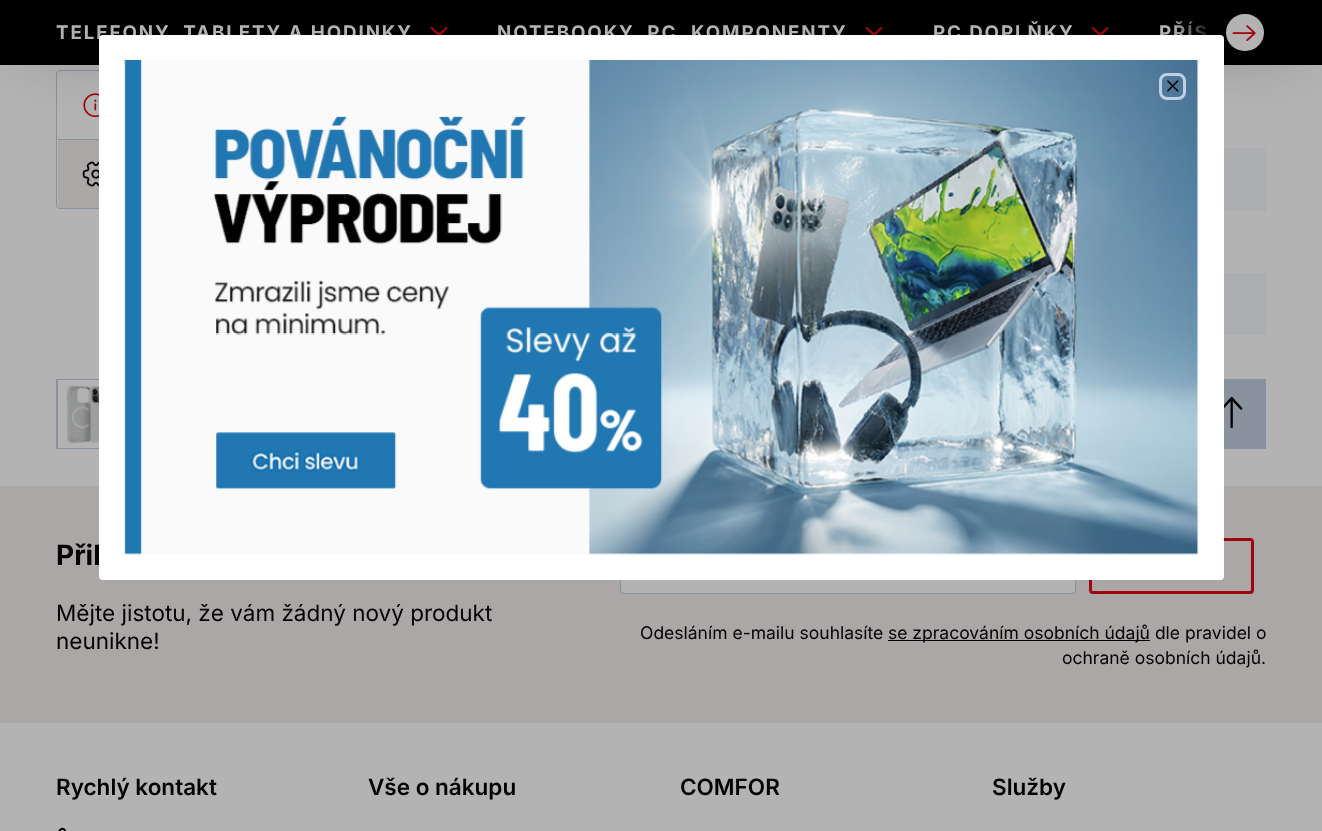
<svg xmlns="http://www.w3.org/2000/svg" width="1322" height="831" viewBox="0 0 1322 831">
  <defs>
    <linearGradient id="g1" gradientUnits="userSpaceOnUse" x1="1266" y1="32" x2="1173" y2="33"><stop offset="0.28" stop-color="rgb(0,0,0)"/><stop offset="0.66" stop-color="rgb(0,0,0)" stop-opacity="0.79"/><stop offset="1" stop-color="rgb(0,0,0)" stop-opacity="0"/></linearGradient>
  </defs>
  <rect width="100%" height="100%" fill="rgb(179,179,179)"/>
  <rect x="56.5" y="70.5" width="349" height="138" rx="3.5" fill="none" stroke="rgb(135,146,158)"/>
  <image x="83" y="93" width="16" height="25" href="pic4.png"/>
  <path d="M58 139H405V205.5C405 207 404 208 402.5 208H60.5C59 208 58 207 58 205.5Z" fill="rgb(172,167,167)"/>
  <rect x="58" y="139" width="41" height="1" fill="rgb(135,146,158)"/>
  <rect x="1262" y="85" width="4" height="63" fill="rgb(171,173,176)"/>
  <path d="M941 85H1262C1264 85 1266 87 1266 89V144C1266 146 1264 148 1262 148H941Z" fill="rgb(179,179,179)"/>
  <rect x="25" y="-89" width="1273" height="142" fill="rgba(0,0,0,0.21)" filter="blur(29.5px)"/>
  <rect x="0" y="0" width="1322" height="65" fill="rgb(0,0,0)"/>
  <text x="56" y="39" font-family="Inter" font-size="18.75" font-weight="bold" letter-spacing="1.9" fill="rgb(179,179,179)">TELEFONY, TABLETY A HODINKY</text>
  <image x="430" y="26" width="18" height="9" href="pic1.png"/>
  <text x="497" y="39" font-family="Inter" font-size="18.75" font-weight="bold" letter-spacing="1.9" fill="rgb(179,179,179)">NOTEBOOKY, PC, KOMPONENTY</text>
  <image x="865" y="26" width="18" height="9" href="pic1.png"/>
  <text x="933" y="39" font-family="Inter" font-size="18.75" font-weight="bold" letter-spacing="1.9" fill="rgb(179,179,179)">PC DOPLŇKY</text>
  <image x="1091" y="26" width="18" height="9" href="pic2.png"/>
  <text x="1159" y="39" font-family="Inter" font-size="18.75" font-weight="bold" letter-spacing="1.9" fill="rgb(179,179,179)">PŘÍS</text>
  <rect x="1174" y="21" width="32" height="19" fill="url(#g1)"/>
  <rect x="1226" y="14" width="38" height="37" rx="18.5" fill="rgb(179,179,179)"/>
  <image x="1232" y="25" width="24" height="16" href="pic3.png"/>
  <image x="82" y="161" width="17" height="26" href="pic5.png"/>
  <rect x="1224" y="148" width="42" height="62" fill="rgb(171,173,176)"/>
  <rect x="1262" y="210" width="4" height="63" fill="rgb(171,173,176)"/>
  <path d="M941 210H1262C1264 210 1266 212 1266 214V269C1266 271 1264 273 1262 273H941Z" fill="rgb(179,179,179)"/>
  <rect x="1224" y="273" width="42" height="62" fill="rgb(171,173,176)"/>
  <rect x="56" y="379" width="1210" height="70" fill="rgb(135,146,158)"/>
  <rect x="58" y="380" width="41" height="68" fill="rgb(179,179,179)"/>
  <image x="66" y="384" width="33" height="60" href="pic6.png"/>
  <image x="1224" y="397" width="19" height="32" href="pic7.png"/>
  <rect x="0" y="486" width="1322" height="237" fill="rgb(172,167,167)"/>
  <text x="56" y="565" font-family="Inter" font-size="28" font-weight="bold" fill="rgb(1,1,2)">Přih</text>
  <g font-family="Inter" font-size="22.5" fill="rgb(1,1,2)">
    <text>
      <tspan x="56" y="621">Mějte jistotu, že vám žádný nový produkt</tspan>
      <tspan x="56" y="649">neunikne!</tspan>
    </text>
  </g>
  <rect x="620.5" y="538.5" width="455" height="55" rx="3.5" fill="rgb(179,179,179)" stroke="rgb(135,146,158)"/>
  <rect x="1090.5" y="539.5" width="162" height="53" rx="2.5" fill="none" stroke="rgb(159,4,13)" stroke-width="3"/>
  <text x="640" y="639" font-family="Inter" font-size="17.5" fill="rgb(1,1,2)">Odesláním e-mailu souhlasíte</text>
  <rect x="888" y="640" width="262" height="1" fill="rgb(0,0,0)"/>
  <g font-family="Inter" font-size="17.5" fill="rgb(1,1,2)">
    <text x="888" y="639">se zpracováním osobních údajů dle pravidel o</text>
    <text x="1062" y="664">ochraně osobních údajů.</text>
  </g>
  <text x="56" y="795" font-family="Inter" font-size="22.5" font-weight="600" fill="rgb(1,1,2)">Rychlý kontakt</text>
  <image x="58" y="827" width="9" height="4" href="pic8.png"/>
  <g font-family="Inter" font-size="22.5" font-weight="600" fill="rgb(1,1,2)">
    <text x="368" y="795">Vše o nákupu</text>
    <text x="680" y="795">COMFOR</text>
    <text x="992" y="795">Služby</text>
  </g>
  <rect x="99" y="35" width="1125" height="545" rx="4" fill="rgb(255,255,255)"/>
  <image x="124" y="60" width="1075" height="495" href="pic9.png"/>
  <rect x="1160.5" y="74.5" width="24" height="24" rx="6.5" fill="none" stroke="rgb(193,208,225)" stroke-width="3"/>
  <image x="1167" y="80" width="12" height="12" href="pic10.png"/>
</svg>
